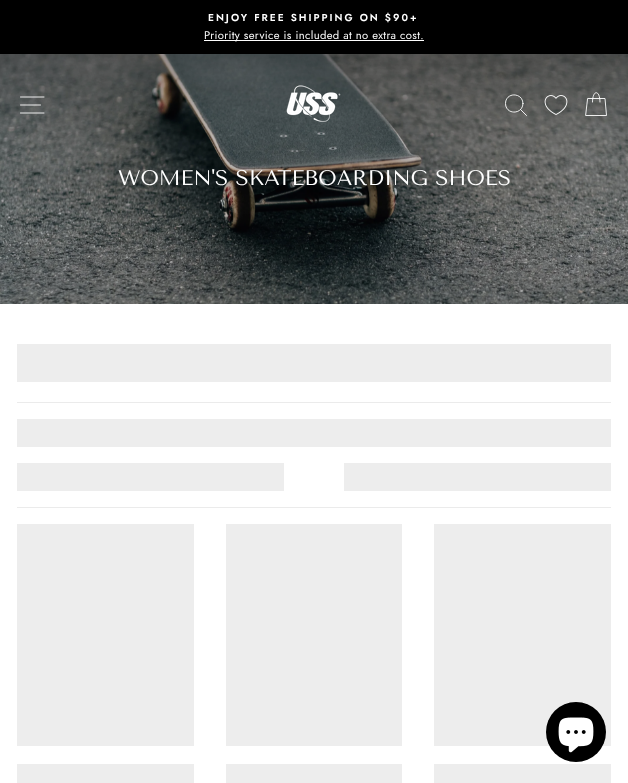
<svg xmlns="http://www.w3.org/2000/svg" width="628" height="783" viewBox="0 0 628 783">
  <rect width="100%" height="100%" fill="rgb(255,255,255)"/>
  <rect x="0" y="0" width="628" height="54" fill="rgb(0,0,0)"/>
  <text x="208" y="21" font-family="Jost" font-size="10.1" font-weight="600" letter-spacing="2" fill="rgb(255,255,255)">ENJOY FREE SHIPPING ON $90+</text>
  <rect x="204" y="40" width="220" height="1" fill="rgb(255,255,255)"/>
  <text x="204" y="39" font-family="Jost" font-size="11.25" letter-spacing="0.35" fill="rgb(255,255,255)">Priority service is included at no extra cost.</text>
  <image x="0" y="54" width="628" height="250" href="pic3.png"/>
  <path d="M20.5 97H44M20.5 105H40.5M20.5 113H44" fill="none" stroke="rgb(255,255,255)" stroke-width="0.9" stroke-linecap="round" stroke-linejoin="round"/>
  <image x="286" y="85" width="55" height="37" href="pic1.png"/>
  <path d="M523 103.5C523 115 505.5 115 505.5 103.5C505.5 92 523 92 523 103.5ZM526.5 115.5L520.5 109.5" fill="none" stroke="rgb(255,255,255)" stroke-width="0.9" stroke-linecap="round" stroke-linejoin="round"/>
  <image x="544" y="95" width="24" height="20" href="pic2.png"/>
  <path d="M592.5 102C592.5 89.5 600 89.5 600 102M588 98.5H605L606.5 115.5H586Z" fill="none" stroke="rgb(255,255,255)" stroke-width="0.9" stroke-linecap="round" stroke-linejoin="round"/>
  <text x="118" y="185" font-family="Tenor Sans" font-size="21.25" fill="rgb(255,255,255)">WOMEN'S SKATEBOARDING SHOES</text>
  <rect x="17" y="344" width="594" height="38" fill="rgb(237,237,237)"/>
  <rect x="17" y="402" width="594" height="1" fill="rgb(235,235,235)"/>
  <rect x="17" y="507" width="594" height="1" fill="rgb(235,235,235)"/>
  <rect x="17" y="419" width="594" height="28" fill="rgb(237,237,237)"/>
  <rect x="17" y="463" width="267" height="28" fill="rgb(237,237,237)"/>
  <rect x="344" y="463" width="267" height="28" fill="rgb(237,237,237)"/>
  <rect x="17" y="524" width="177" height="222" fill="rgb(237,237,237)"/>
  <rect x="17" y="764" width="177" height="19" fill="rgb(237,237,237)"/>
  <rect x="226" y="524" width="176" height="222" fill="rgb(237,237,237)"/>
  <rect x="226" y="764" width="176" height="19" fill="rgb(237,237,237)"/>
  <rect x="434" y="524" width="177" height="222" fill="rgb(237,237,237)"/>
  <rect x="434" y="764" width="177" height="19" fill="rgb(237,237,237)"/>
  <circle cx="576" cy="732" r="30" fill="rgb(0,0,0)"/>
  <image x="558" y="717" width="36" height="36" href="pic4.png"/>
</svg>
